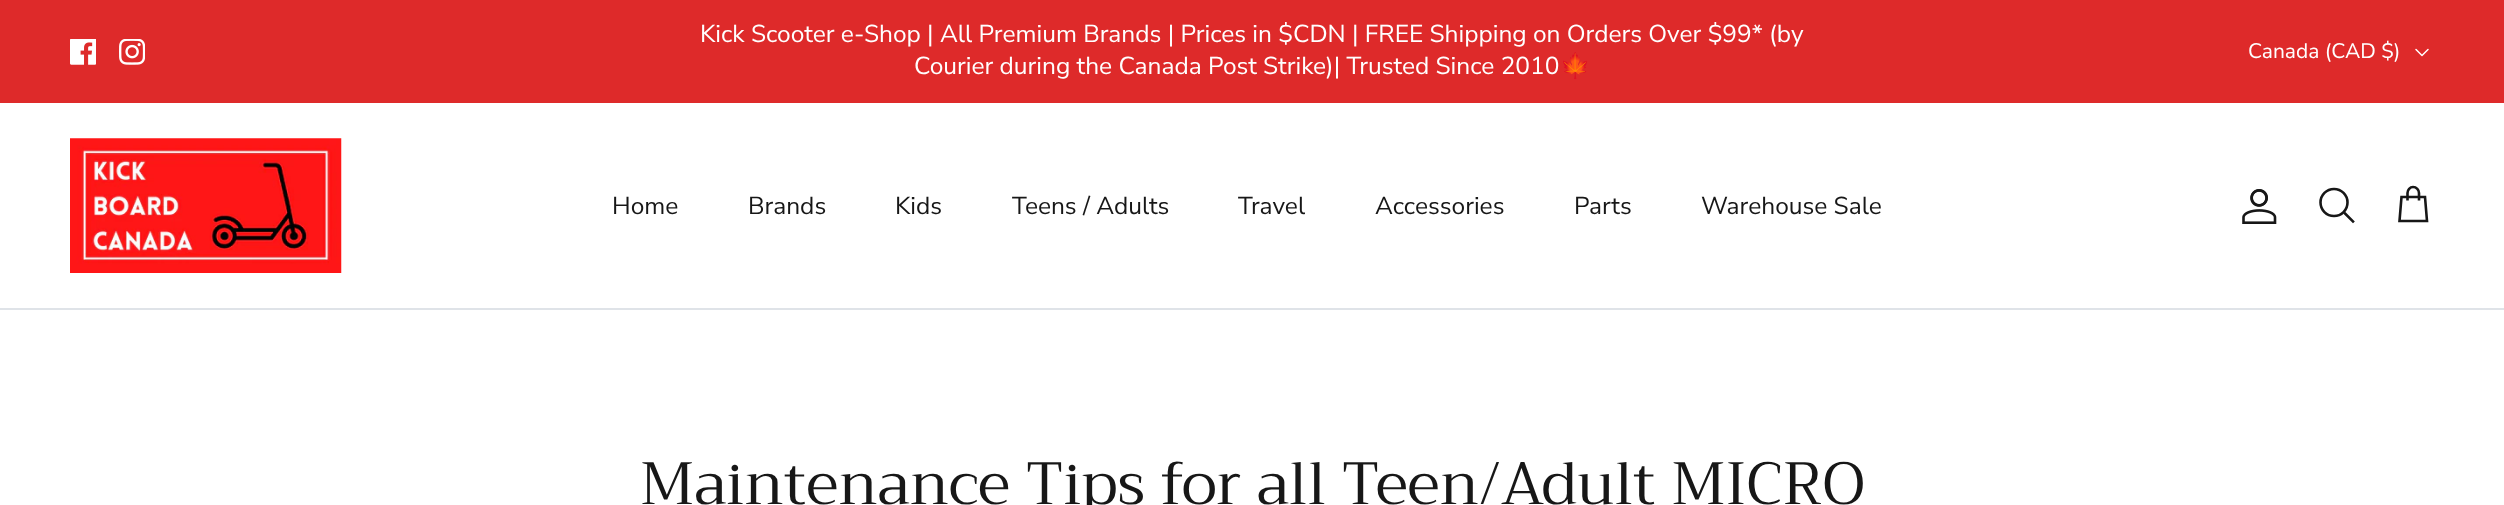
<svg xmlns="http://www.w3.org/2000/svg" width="2504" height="505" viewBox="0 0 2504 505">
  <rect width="100%" height="100%" fill="rgb(255,255,255)"/>
  <rect x="0" y="0" width="2504" height="103" fill="rgb(222,42,42)"/>
  <image x="70" y="39" width="26" height="26" href="pic1.png"/>
  <image x="119" y="39" width="26" height="26" href="pic2.png"/>
  <g font-family="Nunito Sans" font-size="24.5" fill="rgb(255,255,255)">
    <text x="700" y="42">Kick Scooter e-Shop | All Premium Brands | Prices in $CDN | FREE Shipping on Orders Over $99* (by</text>
    <text x="914" y="74">Courier during the Canada Post Strike)| Trusted Since 2010</text>
  </g>
  <text x="1560" y="74" font-family="Noto Color Emoji" font-size="24.5" fill="rgb(255,255,255)">🍁</text>
  <text x="2248" y="58" font-family="Nunito Sans" font-size="21" fill="rgb(255,255,255)">Canada (CAD $)</text>
  <path d="M2416 49.5L2422 55.5L2428 49.5" fill="none" stroke="rgb(255,255,255)" stroke-width="1.5" stroke-linecap="round" stroke-linejoin="round"/>
  <rect x="0" y="308" width="2504" height="2" fill="rgb(223,227,232)"/>
  <image x="70" y="138" width="272" height="135" href="pic3.png"/>
  <g font-family="Nunito Sans" font-size="24.5" fill="rgb(23,23,23)">
    <text x="612" y="214">Home</text>
    <text x="748" y="214">Brands</text>
    <text x="895" y="214">Kids</text>
    <text x="1012" y="214">Teens / Adults</text>
    <text x="1238" y="214">Travel</text>
    <text x="1375" y="214">Accessories</text>
    <text x="1574" y="214">Parts</text>
    <text x="1701" y="214">Warehouse Sale</text>
  </g>
  <image x="2242" y="189" width="35" height="35" href="pic4.png"/>
  <circle cx="2334" cy="202.5" r="13.5" fill="none" stroke="rgb(23,23,23)" stroke-width="2.6"/>
  <path d="M2345 213.5L2353 221.5" fill="none" stroke="rgb(23,23,23)" stroke-width="2.6" stroke-linecap="square"/>
  <path d="M2419 200.5V193C2419 190 2416.5 187 2413 187C2410 187 2407.5 190 2407.5 193V200.5M2401.5 197H2425L2427 221H2399.5Z" fill="none" stroke="rgb(23,23,23)" stroke-width="2.6"/>
  <text x="640" y="504" font-family="Trirong" font-size="59.5" fill="rgb(23,23,23)">Maintenance Tips for all Teen/Adult MICRO</text>
</svg>
